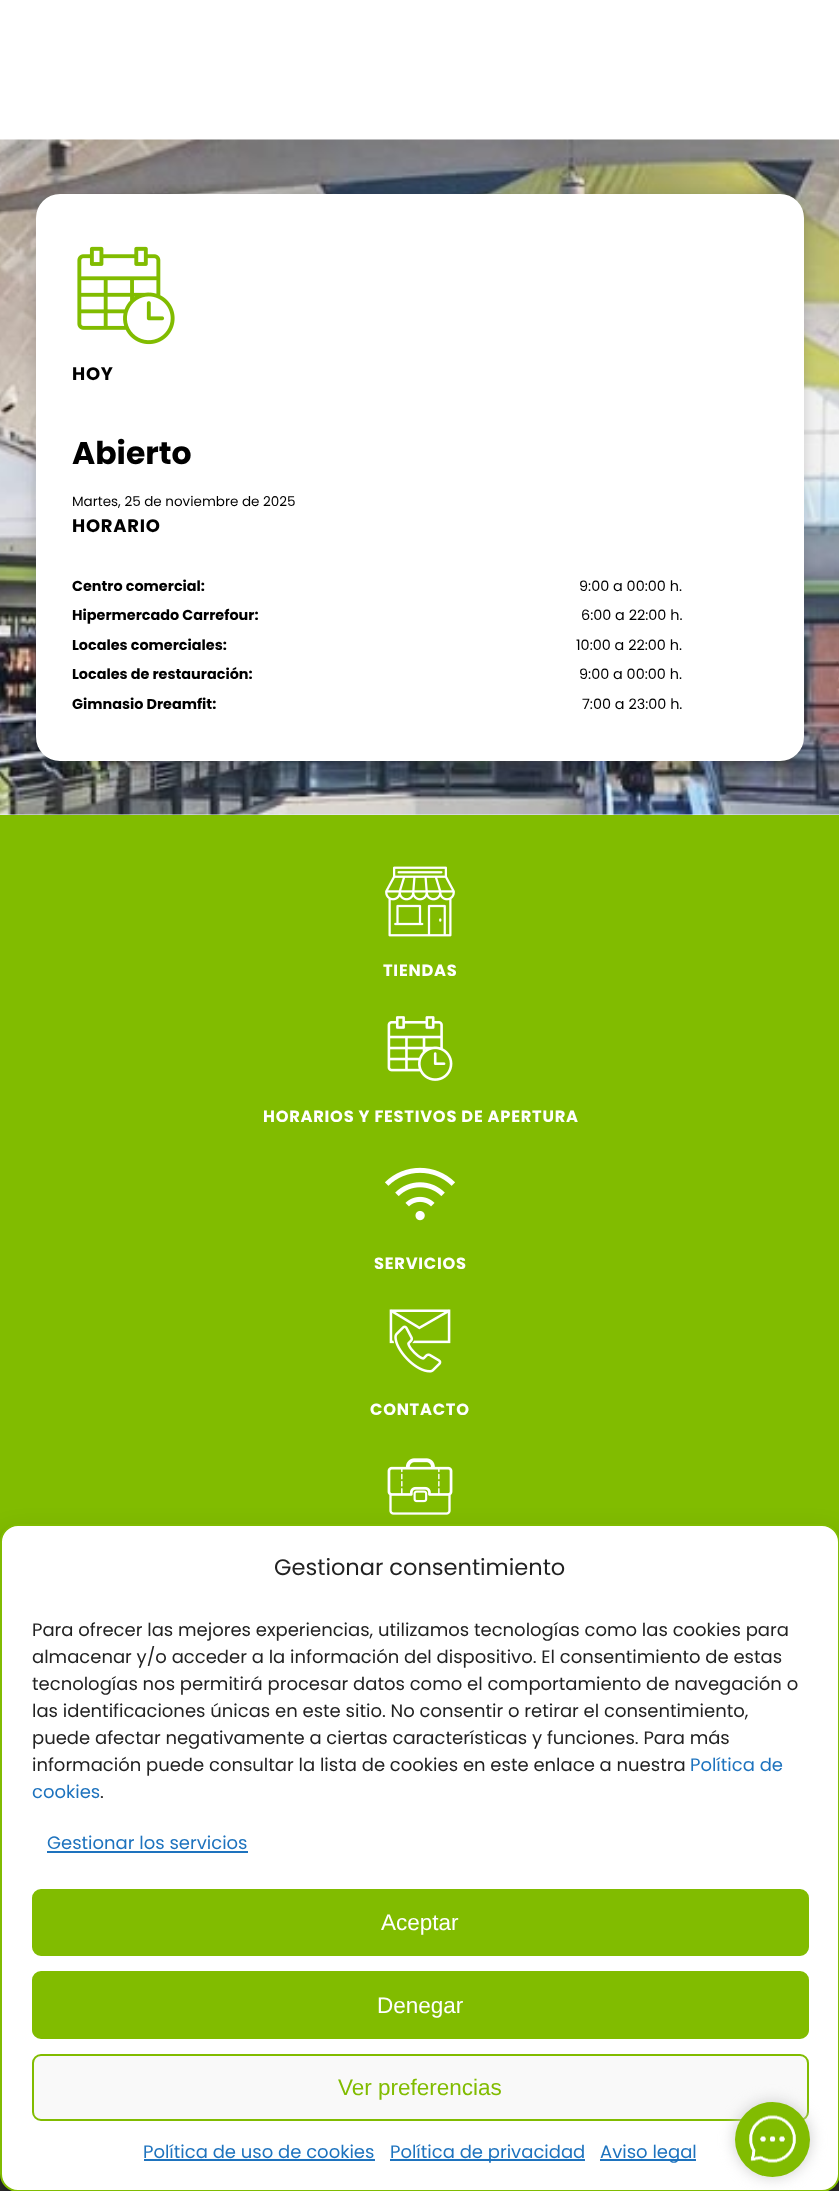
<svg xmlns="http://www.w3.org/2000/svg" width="839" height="2191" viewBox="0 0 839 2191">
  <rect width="100%" height="100%" fill="rgb(255,255,255)"/>
  <rect x="0" y="814" width="839" height="1" fill="rgb(235,241,246)"/>
  <image x="0" y="139" width="839" height="676" href="pic1.png"/>
  <rect x="36" y="198" width="768" height="567" rx="24" fill="rgba(0,0,0,0.15)" filter="blur(7px)"/>
  <rect x="36" y="194" width="768" height="567" rx="24" fill="rgb(255,255,255)"/>
  <image x="77" y="246" width="98" height="99" href="pic2.png"/>
  <text x="72" y="380" font-family="Poppins" font-size="18" font-weight="bold" letter-spacing="0.75" fill="rgb(0,0,0)">HOY</text>
  <text x="72" y="464" font-family="Poppins" font-size="31.5" font-weight="bold" fill="rgb(0,0,0)">Abierto</text>
  <text x="72" y="506" font-family="Poppins" font-size="13.5" fill="rgb(0,0,0)">Martes, 25 de noviembre de 2025</text>
  <text x="72" y="532" font-family="Poppins" font-size="18" font-weight="bold" letter-spacing="0.75" fill="rgb(0,0,0)">HORARIO</text>
  <text x="72" y="591" font-family="Poppins" font-size="14.4" font-weight="bold" fill="rgb(0,0,0)">Centro comercial:</text>
  <text x="579" y="591" font-family="Poppins" font-size="14.4" fill="rgb(0,0,0)">9:00 a 00:00 h.</text>
  <text x="72" y="620" font-family="Poppins" font-size="14.4" font-weight="bold" fill="rgb(0,0,0)">Hipermercado Carrefour:</text>
  <text x="581" y="620" font-family="Poppins" font-size="14.4" fill="rgb(0,0,0)">6:00 a 22:00 h.</text>
  <text x="72" y="650" font-family="Poppins" font-size="14.4" font-weight="bold" fill="rgb(0,0,0)">Locales comerciales:</text>
  <text x="576" y="650" font-family="Poppins" font-size="14.4" fill="rgb(0,0,0)">10:00 a 22:00 h.</text>
  <text x="72" y="679" font-family="Poppins" font-size="14.4" font-weight="bold" fill="rgb(0,0,0)">Locales de restauración:</text>
  <text x="579" y="679" font-family="Poppins" font-size="14.4" fill="rgb(0,0,0)">9:00 a 00:00 h.</text>
  <text x="72" y="709" font-family="Poppins" font-size="14.4" font-weight="bold" fill="rgb(0,0,0)">Gimnasio Dreamfit:</text>
  <text x="582" y="709" font-family="Poppins" font-size="14.4" fill="rgb(0,0,0)">7:00 a 23:00 h.</text>
  <rect x="0" y="815" width="839" height="727" fill="rgb(129,188,0)"/>
  <image x="385" y="866" width="70" height="71" href="pic3.png"/>
  <text x="383" y="976" font-family="Poppins" font-size="16.25" font-weight="bold" letter-spacing="0.75" fill="rgb(255,255,255)">TIENDAS</text>
  <image x="387" y="1016" width="66" height="65" href="pic4.png"/>
  <text x="263" y="1122" font-family="Poppins" font-size="16.25" font-weight="bold" letter-spacing="0.75" fill="rgb(255,255,255)">HORARIOS Y FESTIVOS DE APERTURA</text>
  <image x="385" y="1167" width="70" height="54" href="pic5.png"/>
  <text x="374" y="1269" font-family="Poppins" font-size="16.25" font-weight="bold" letter-spacing="0.75" fill="rgb(255,255,255)">SERVICIOS</text>
  <image x="389" y="1309" width="62" height="64" href="pic6.png"/>
  <text x="370" y="1415" font-family="Poppins" font-size="16.25" font-weight="bold" letter-spacing="0.75" fill="rgb(255,255,255)">CONTACTO</text>
  <image x="387" y="1458" width="66" height="57" href="pic7.png"/>
  <rect x="0" y="2174" width="839" height="17" fill="rgb(49,49,49)"/>
  <rect x="0" y="1533" width="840" height="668" rx="18" fill="rgba(0,0,0,0.23)" filter="blur(4.5px)"/>
  <rect x="0" y="1539" width="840" height="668" rx="18" fill="rgba(0,0,0,0.19)" filter="blur(15px)"/>
  <rect x="1" y="1525" width="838" height="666" rx="17" fill="rgb(255,255,255)" stroke="rgb(129,188,1)" stroke-width="2"/>
  <text x="274" y="1575" font-family="Poppins" font-size="22.5" fill="rgb(34,34,34)">Gestionar consentimiento</text>
  <g font-family="Poppins" font-size="18" fill="rgb(34,34,34)">
    <text>
      <tspan x="32" y="1636">Para ofrecer las mejores experiencias, utilizamos tecnologías como las cookies para</tspan>
      <tspan x="32" y="1663">almacenar y/o acceder a la información del dispositivo. El consentimiento de estas</tspan>
      <tspan x="32" y="1690">tecnologías nos permitirá procesar datos como el comportamiento de navegación o</tspan>
      <tspan x="32" y="1717">las identificaciones únicas en este sitio. No consentir o retirar el consentimiento,</tspan>
      <tspan x="32" y="1744">puede afectar negativamente a ciertas características y funciones. Para más</tspan>
      <tspan x="32" y="1771">información puede consultar la lista de cookies en este enlace a nuestra</tspan>
    </text>
  </g>
  <g font-family="Poppins" font-size="18" fill="rgb(30,115,190)">
    <text x="690" y="1771">Política de</text>
    <text x="32" y="1798">cookies</text>
  </g>
  <text x="100" y="1798" font-family="Poppins" font-size="18" fill="rgb(34,34,34)">.</text>
  <text x="47" y="1849" font-family="Poppins" font-size="18" fill="rgb(30,115,190)">Gestionar los servicios</text>
  <rect x="47" y="1851" width="201" height="2" fill="rgb(30,115,190)"/>
  <rect x="33" y="1890" width="775" height="65" rx="8" fill="rgb(129,188,0)" stroke="rgb(129,188,0)" stroke-width="2"/>
  <text x="381" y="1930" font-family="Liberation Sans" font-size="22.5" fill="rgb(255,255,255)">Aceptar</text>
  <rect x="33" y="1972" width="775" height="66" rx="8" fill="rgb(129,188,0)" stroke="rgb(129,188,0)" stroke-width="2"/>
  <text x="377" y="2013" font-family="Liberation Sans" font-size="22.5" fill="rgb(255,255,255)">Denegar</text>
  <rect x="33" y="2055" width="775" height="65" rx="8" fill="rgb(249,249,249)" stroke="rgb(129,188,0)" stroke-width="2"/>
  <text x="338" y="2095" font-family="Liberation Sans" font-size="22.5" fill="rgb(129,188,0)">Ver preferencias</text>
  <text x="143" y="2158" font-family="Poppins" font-size="18" fill="rgb(30,115,190)">Política de uso de cookies</text>
  <rect x="144" y="2159" width="231" height="2" fill="rgb(30,115,190)"/>
  <rect x="390" y="2159" width="195" height="2" fill="rgb(30,115,190)"/>
  <text x="390" y="2158" font-family="Poppins" font-size="18" fill="rgb(30,115,190)">Política de privacidad</text>
  <rect x="600" y="2159" width="96" height="2" fill="rgb(30,115,190)"/>
  <text x="600" y="2158" font-family="Poppins" font-size="18" fill="rgb(30,115,190)">Aviso legal</text>
  <rect x="735" y="2102" width="75" height="75" rx="37.5" fill="rgb(204,204,204)" filter="blur(7.5px)"/>
  <circle cx="772.5" cy="2139.5" r="37.5" fill="rgb(129,188,1)"/>
  <image x="749" y="2115" width="47" height="48" href="pic8.png"/>
</svg>
